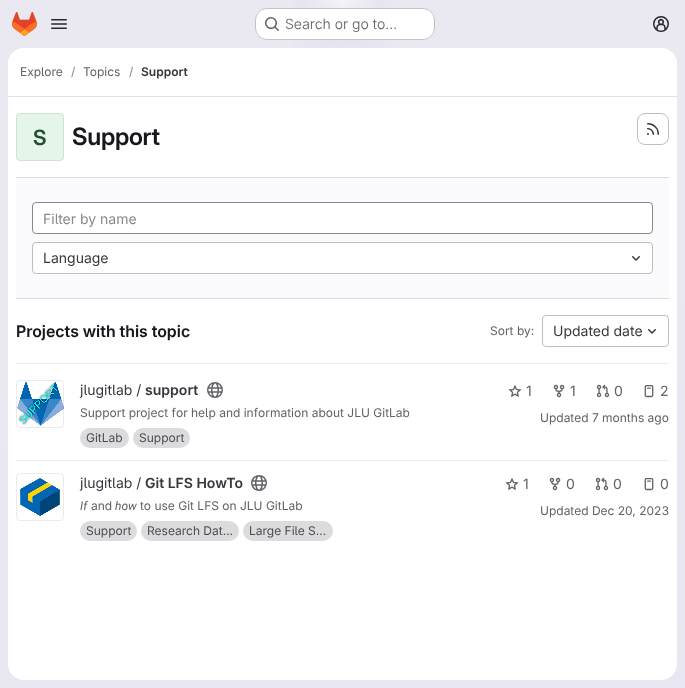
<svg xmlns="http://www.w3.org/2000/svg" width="685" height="688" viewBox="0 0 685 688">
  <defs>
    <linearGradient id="g1" gradientUnits="userSpaceOnUse" x1="412" y1="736" x2="273" y2="-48"><stop offset="0" stop-color="rgb(232,230,240)"/><stop offset="0.7" stop-color="rgb(234,233,242)"/></linearGradient>
    <radialGradient id="g2" gradientUnits="userSpaceOnUse" cx="0" cy="0" r="1" gradientTransform="matrix(343 0 0 688 343 0)"><stop offset="0" stop-color="rgb(228,226,237)"/><stop offset="0.2" stop-color="rgb(228,226,237)" stop-opacity="0"/></radialGradient>
    <radialGradient id="g3" gradientUnits="userSpaceOnUse" cx="0" cy="0" r="1" gradientTransform="matrix(343 0 0 688 343 0)"><stop offset="0" stop-color="rgb(228,226,236)"/><stop offset="0.15" stop-color="rgb(228,226,236)" stop-opacity="0"/></radialGradient>
    <radialGradient id="g4" gradientUnits="userSpaceOnUse" cx="343" cy="0" r="769"><stop offset="0" stop-color="rgb(255,255,255)" stop-opacity="0.6"/><stop offset="0.05" stop-color="rgb(255,255,255)" stop-opacity="0"/></radialGradient>
  </defs>
  <rect width="100%" height="100%" fill="rgb(255,255,255)"/>
  <rect x="0" y="0" width="685" height="688" fill="url(#g1)"/>
  <rect x="294" y="0" width="98" height="48" fill="url(#g2)"/>
  <rect x="319" y="5" width="48" height="40" fill="url(#g3)"/>
  <rect x="306" y="0" width="74" height="8" fill="url(#g4)"/>
  <image x="12" y="12" width="25" height="24" href="pic1.png"/>
  <image x="51" y="19" width="16" height="10" href="pic2.png"/>
  <rect x="255" y="8" width="180" height="32" rx="12" fill="rgb(255,255,255)"/>
  <rect x="255.5" y="8.5" width="179" height="31" rx="11.5" fill="none" stroke="rgba(5,5,6,0.24)"/>
  <image x="265" y="17" width="14" height="14" href="pic3.png"/>
  <text x="285" y="29" font-family="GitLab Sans" font-size="14" font-weight="300" fill="rgb(98,97,104)">Search or go to…</text>
  <image x="653" y="16" width="16" height="16" href="pic4.png"/>
  <rect x="8" y="48" width="669" height="632" rx="16" fill="rgb(255,255,255)"/>
  <path d="M24 48H661C670 48 677 55 677 64V97H8V64C8 55 15 48 24 48Z" fill="rgb(255,255,255)"/>
  <rect x="8" y="96" width="669" height="1" fill="rgb(225,223,236)"/>
  <text x="20" y="76" font-family="GitLab Sans" font-size="12" fill="rgb(98,97,104)">Explore</text>
  <text x="71" y="76" font-family="GitLab Sans" font-size="12" fill="rgb(137,136,141)">/</text>
  <text x="83" y="76" font-family="GitLab Sans" font-size="12" fill="rgb(98,97,104)">Topics</text>
  <text x="129" y="76" font-family="GitLab Sans" font-size="12" fill="rgb(137,136,141)">/</text>
  <text x="141" y="76" font-family="'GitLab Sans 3'" font-size="12" font-weight="600" fill="rgb(58,56,63)">Support</text>
  <rect x="16" y="113" width="48" height="48" rx="4" fill="rgb(229,245,234)"/>
  <rect x="16.5" y="113.5" width="47" height="47" rx="3.5" fill="none" stroke="rgba(5,5,6,0.08)"/>
  <text x="33" y="145" font-family="'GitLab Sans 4'" font-size="21" font-weight="600" letter-spacing="-0.25" fill="rgb(34,81,49)">S</text>
  <text x="72" y="145" font-family="GitLab Sans" font-size="24" font-weight="600" letter-spacing="-0.25" fill="rgb(24,23,29)">Support</text>
  <rect x="637.5" y="113.5" width="31" height="31" rx="7.5" fill="none" stroke="rgb(191,191,195)"/>
  <image x="647" y="123" width="12" height="12" href="pic5.png"/>
  <rect x="16" y="178" width="653" height="120" fill="rgb(251,250,253)"/>
  <rect x="16" y="177" width="653" height="1" fill="rgb(220,220,222)"/>
  <rect x="16" y="298" width="653" height="1" fill="rgb(220,220,222)"/>
  <rect x="32.5" y="202.5" width="620" height="31" rx="3.5" fill="rgb(255,255,255)" stroke="rgb(137,136,141)"/>
  <text x="43" y="224" font-family="GitLab Sans" font-size="14" fill="rgb(137,136,141)">Filter by name</text>
  <rect x="32.5" y="242.5" width="620" height="31" rx="3.5" fill="rgb(255,255,255)" stroke="rgb(191,191,195)"/>
  <text x="43" y="263" font-family="GitLab Sans" font-size="14" fill="rgb(58,56,63)">Language</text>
  <image x="632" y="256" width="8" height="5" href="pic6.png"/>
  <rect x="16" y="363" width="653" height="1" fill="rgb(236,236,239)"/>
  <text x="16" y="337" font-family="'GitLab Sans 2'" font-size="16" font-weight="600" fill="rgb(24,23,29)">Projects with this topic</text>
  <text x="490" y="335" font-family="GitLab Sans" font-size="12" fill="rgb(98,97,104)">Sort by:</text>
  <rect x="542.5" y="315.5" width="126" height="31" rx="3.5" fill="none" stroke="rgb(191,191,195)"/>
  <text x="553" y="336" font-family="GitLab Sans" font-size="14" fill="rgb(58,56,63)">Updated date</text>
  <image x="648" y="329" width="8" height="5" href="pic6.png"/>
  <rect x="16" y="460" width="653" height="1" fill="rgb(236,236,239)"/>
  <image x="17" y="382" width="47" height="44" href="pic7.png"/>
  <rect x="16.5" y="380.5" width="47" height="47" rx="3.5" fill="none" stroke="rgba(5,5,6,0.08)"/>
  <text x="80" y="395" font-family="GitLab Sans" font-size="14" fill="rgb(58,56,63)">jlugitlab /</text>
  <text x="145" y="395" font-family="'GitLab Sans 3'" font-size="14" font-weight="600" fill="rgb(58,56,63)">support</text>
  <image x="207" y="382" width="16" height="16" href="pic8.png"/>
  <text x="80" y="417" font-family="GitLab Sans" font-size="12" fill="rgb(98,97,104)">Support project for help and information about JLU GitLab</text>
  <rect x="80" y="428" width="49" height="20" rx="10" fill="rgb(220,220,222)"/>
  <text x="86" y="442" font-family="GitLab Sans" font-size="12" fill="rgb(76,75,81)">GitLab</text>
  <rect x="133" y="428" width="57" height="20" rx="10" fill="rgb(220,220,222)"/>
  <text x="139" y="442" font-family="GitLab Sans" font-size="12" fill="rgb(76,75,81)">Support</text>
  <image x="508" y="385" width="14" height="12" href="pic9.png"/>
  <text x="526" y="396" font-family="GitLab Sans" font-size="14" fill="rgb(98,97,104)">1</text>
  <image x="553" y="384" width="12" height="14" href="pic10.png"/>
  <text x="570" y="396" font-family="GitLab Sans" font-size="14" fill="rgb(98,97,104)">1</text>
  <image x="596" y="384" width="14" height="14" href="pic11.png"/>
  <text x="614" y="396" font-family="GitLab Sans" font-size="14" fill="rgb(98,97,104)">0</text>
  <image x="644" y="385" width="10" height="13" href="pic12.png"/>
  <text x="660" y="396" font-family="GitLab Sans" font-size="14" fill="rgb(98,97,104)">2</text>
  <text x="540" y="422" font-family="GitLab Sans" font-size="12" fill="rgb(98,97,104)">Updated 7 months ago</text>
  <image x="20" y="478" width="40" height="38" href="pic13.png"/>
  <rect x="16.5" y="473.5" width="47" height="47" rx="3.5" fill="none" stroke="rgb(235,235,235)"/>
  <text x="80" y="488" font-family="GitLab Sans" font-size="14" fill="rgb(58,56,63)">jlugitlab /</text>
  <text x="145" y="488" font-family="'GitLab Sans 3'" font-size="14" font-weight="600" fill="rgb(58,56,63)">Git LFS HowTo</text>
  <image x="251" y="475" width="16" height="16" href="pic14.png"/>
  <text x="80" y="510" font-family="Roboto" font-size="12" font-style="italic" fill="rgb(98,97,104)">If</text>
  <text x="91" y="510" font-family="GitLab Sans" font-size="12" fill="rgb(98,97,104)">and</text>
  <text x="115" y="510" font-family="Roboto" font-size="12" font-style="italic" fill="rgb(98,97,104)">how</text>
  <text x="140" y="510" font-family="GitLab Sans" font-size="12" fill="rgb(98,97,104)">to use Git LFS on JLU GitLab</text>
  <rect x="80" y="521" width="57" height="20" rx="10" fill="rgb(220,220,222)"/>
  <text x="86" y="535" font-family="GitLab Sans" font-size="12" fill="rgb(76,75,81)">Support</text>
  <rect x="141" y="521" width="98" height="20" rx="10" fill="rgb(220,220,222)"/>
  <text x="147" y="535" font-family="GitLab Sans" font-size="12" fill="rgb(76,75,81)">Research Dat...</text>
  <rect x="243" y="521" width="90" height="20" rx="10" fill="rgb(220,220,222)"/>
  <text x="249" y="535" font-family="GitLab Sans" font-size="12" fill="rgb(76,75,81)">Large File S...</text>
  <image x="505" y="478" width="14" height="12" href="pic15.png"/>
  <text x="523" y="489" font-family="GitLab Sans" font-size="14" fill="rgb(98,97,104)">1</text>
  <image x="549" y="477" width="12" height="14" href="pic10.png"/>
  <text x="566" y="489" font-family="GitLab Sans" font-size="14" fill="rgb(98,97,104)">0</text>
  <image x="595" y="477" width="14" height="14" href="pic16.png"/>
  <text x="613" y="489" font-family="GitLab Sans" font-size="14" fill="rgb(98,97,104)">0</text>
  <image x="644" y="478" width="10" height="13" href="pic12.png"/>
  <text x="660" y="489" font-family="GitLab Sans" font-size="14" fill="rgb(98,97,104)">0</text>
  <text x="540" y="515" font-family="GitLab Sans" font-size="12" fill="rgb(98,97,104)">Updated Dec 20, 2023</text>
</svg>
